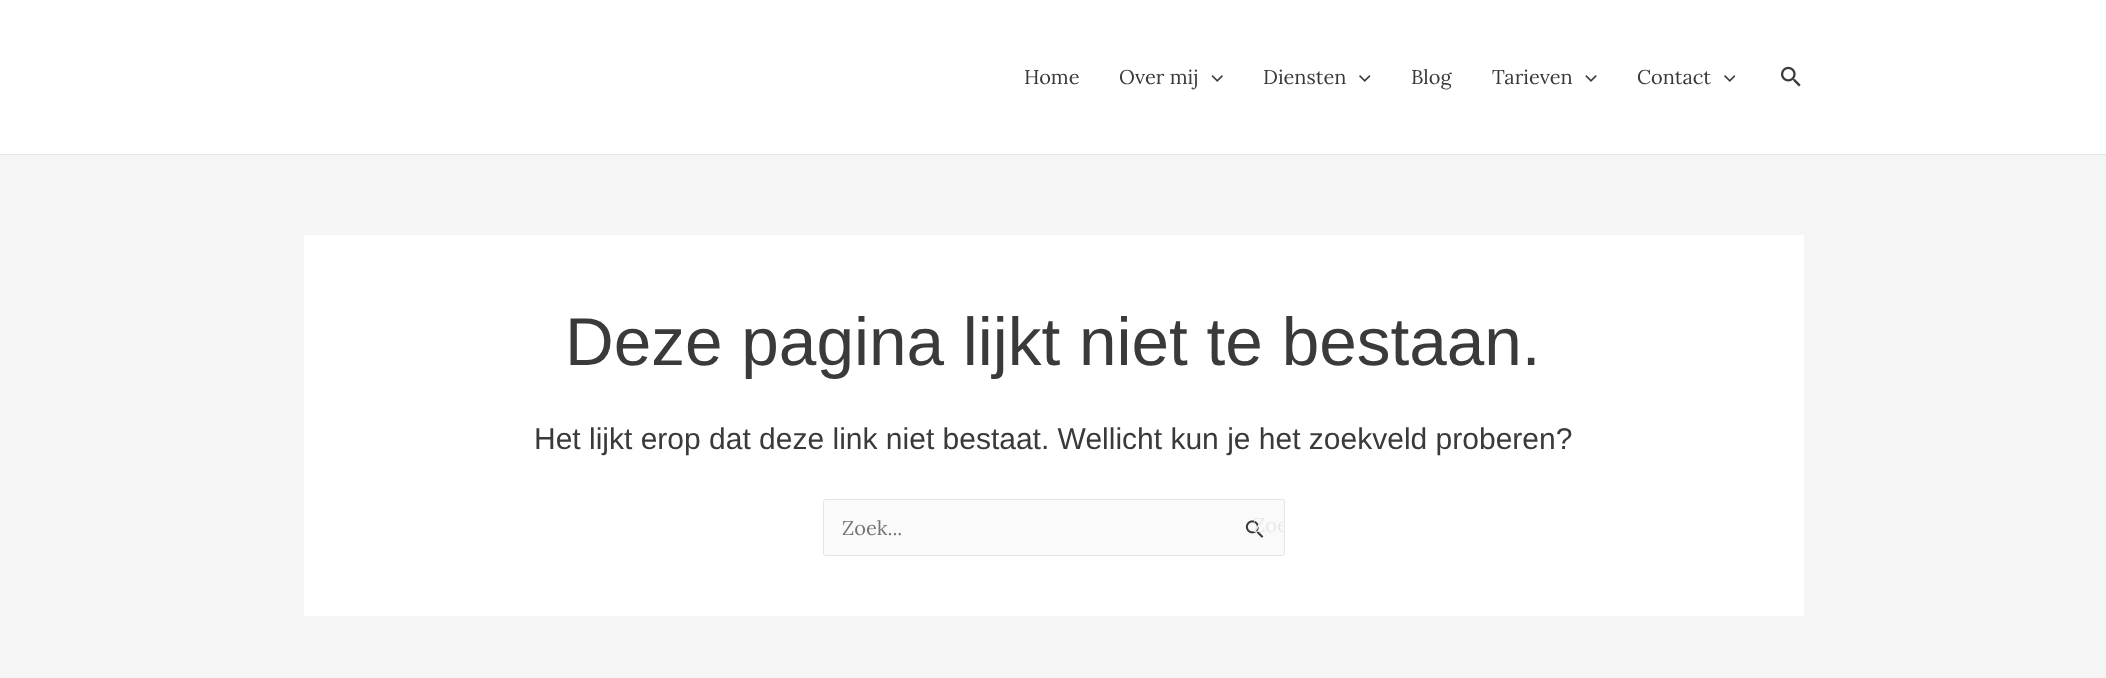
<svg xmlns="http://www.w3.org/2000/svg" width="2106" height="678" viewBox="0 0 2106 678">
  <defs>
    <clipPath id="clip1"><rect x="1229" y="499" width="56" height="52" rx="2.5"/></clipPath>
  </defs>
  <rect width="100%" height="100%" fill="rgb(245,245,245)"/>
  <rect x="0" y="0" width="2106" height="154" fill="rgb(255,255,255)"/>
  <rect x="0" y="154" width="2106" height="1" fill="rgb(229,229,229)"/>
  <g font-family="Lora" font-size="20" fill="rgb(58,58,58)">
    <text x="1024" y="84">Home</text>
    <text x="1119" y="84">Over mij</text>
  </g>
  <image x="1211" y="75" width="12" height="7" href="pic1.png"/>
  <text x="1263" y="84" font-family="Lora" font-size="20" fill="rgb(58,58,58)">Diensten</text>
  <image x="1359" y="75" width="12" height="7" href="pic2.png"/>
  <g font-family="Lora" font-size="20" fill="rgb(58,58,58)">
    <text x="1411" y="84">Blog</text>
    <text x="1492" y="84">Tarieven</text>
  </g>
  <image x="1585" y="75" width="12" height="7" href="pic3.png"/>
  <text x="1637" y="84" font-family="Lora" font-size="20" fill="rgb(58,58,58)">Contact</text>
  <image x="1724" y="75" width="11" height="7" href="pic4.png"/>
  <image x="1781" y="66" width="20" height="21" href="pic5.png"/>
  <rect x="304" y="235" width="1500" height="381" fill="rgb(255,255,255)"/>
  <text x="565" y="365" font-family="Liberation Sans" font-size="67.5" fill="rgb(58,58,58)">Deze pagina lijkt niet te bestaan.</text>
  <text x="534" y="449" font-family="Liberation Sans" font-size="30" fill="rgb(58,58,58)">Het lijkt erop dat deze link niet bestaat. Wellicht kun je het zoekveld proberen?</text>
  <rect x="823.5" y="499.5" width="461" height="56" rx="2" fill="rgb(250,250,250)" stroke="rgb(229,229,229)"/>
  <text x="842" y="535" font-family="Lora" font-size="20" fill="rgb(117,117,117)">Zoek...</text>
  <image x="1245" y="520" width="19" height="18" href="pic6.png"/>
  <g clip-path="url(#clip1)">
    <text x="1253" y="532" font-family="Lora" font-size="20" fill="rgb(233,233,233)">Zoe</text>
  </g>
</svg>
